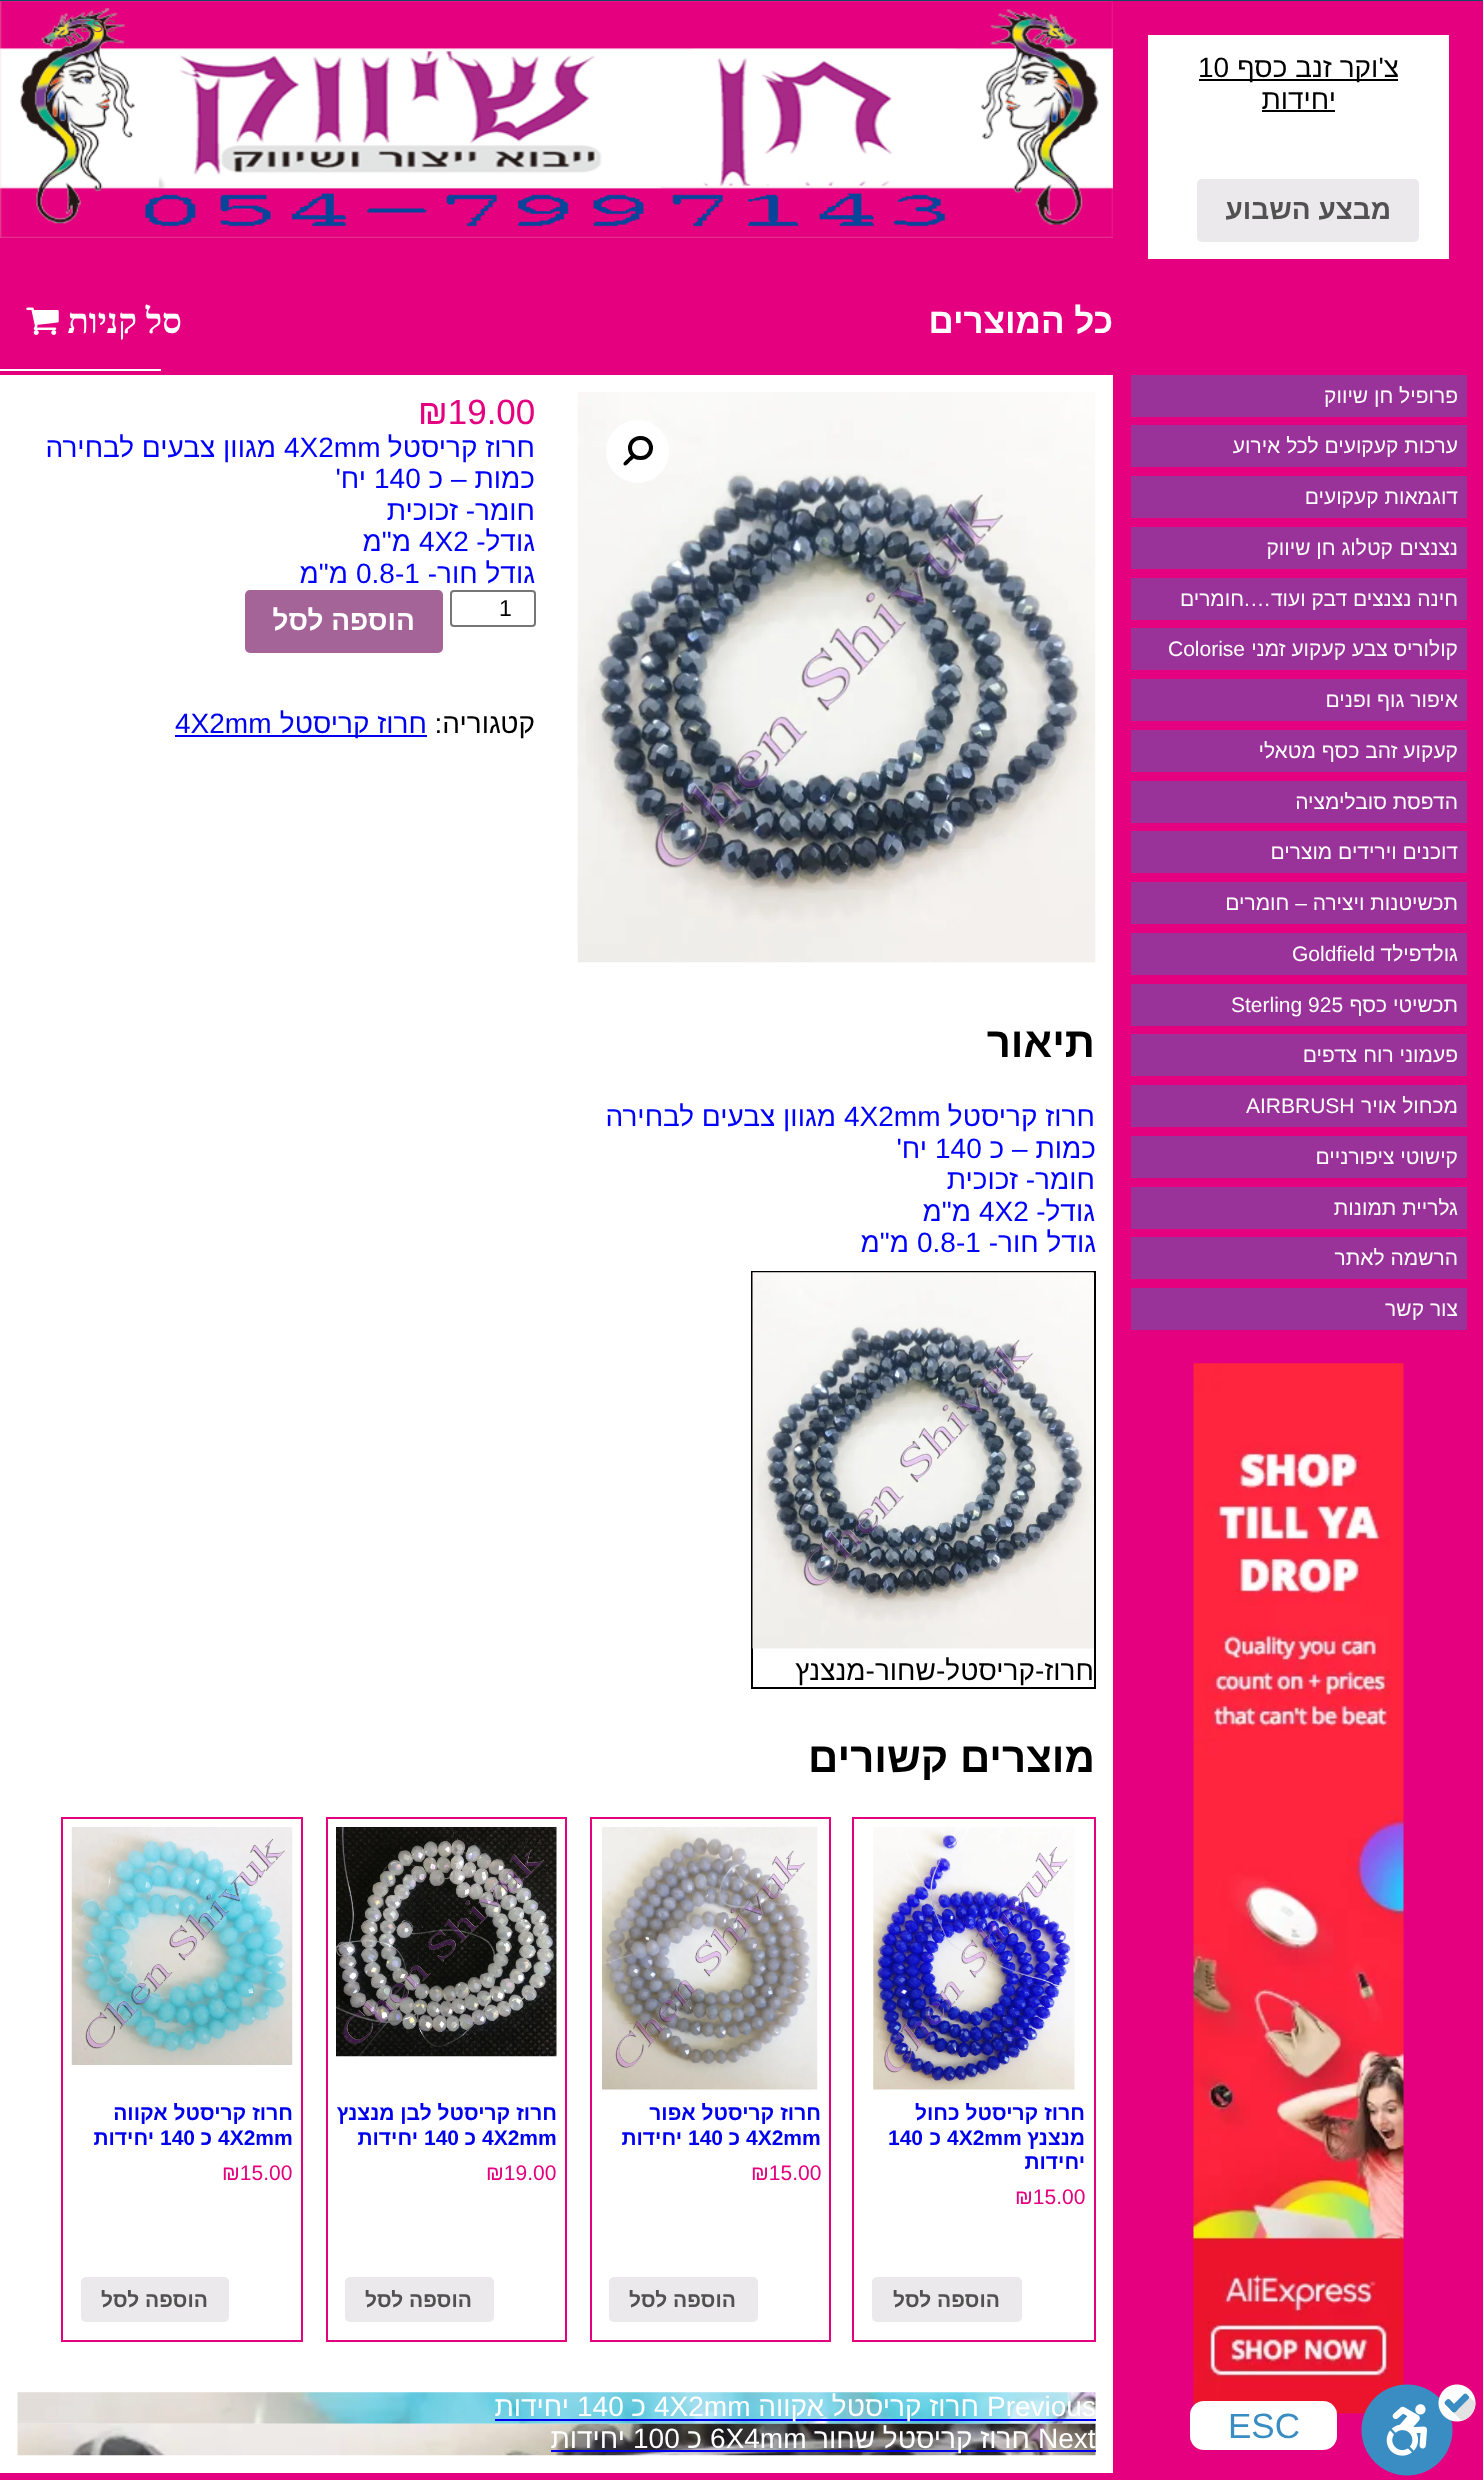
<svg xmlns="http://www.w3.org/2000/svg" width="1483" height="2480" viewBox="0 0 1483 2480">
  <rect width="100%" height="100%" fill="rgb(228,0,127)"/>
  <rect x="0" y="0" width="1483" height="1" fill="rgb(21,73,95)"/>
  <image x="0" y="1" width="1113" height="237" href="pic2.png"/>
  <text x="80" y="32" font-family="Liberation Sans" font-size="17.5" fill="rgb(146,86,95)">ESC</text>
  <image x="1193" y="1363" width="211" height="1051" href="pic4.png"/>
  <image x="1361" y="2384" width="115" height="92" href="pic1.png"/>
  <rect x="1190" y="2401" width="147" height="49" rx="14" fill="rgb(255,255,255)"/>
  <text x="1228" y="2438" font-family="Liberation Sans" font-size="35" fill="rgb(58,141,194)">ESC</text>
  <rect x="1148" y="35" width="301" height="224" fill="rgb(255,255,255)"/>
  <rect x="1199" y="79" width="199" height="2" fill="rgb(0,0,0)"/>
  <text x="1399" y="77" font-family="Liberation Sans" font-size="28" direction="rtl" fill="rgb(0,0,0)">צ'וקר זנב כסף</text>
  <text x="1198" y="77" font-family="Liberation Sans" font-size="28" fill="rgb(0,0,0)">10</text>
  <text x="1336" y="109" font-family="Liberation Sans" font-size="28" direction="rtl" fill="rgb(0,0,0)">יחידות</text>
  <rect x="1262" y="110" width="73" height="2" fill="rgb(0,0,0)"/>
  <rect x="1197" y="179" width="222" height="63" rx="5" fill="rgb(235,233,235)"/>
  <text x="1391" y="219" font-family="Liberation Sans" font-size="28" font-weight="bold" direction="rtl" fill="rgb(81,81,81)">מבצע השבוע</text>
  <text x="1113" y="333" font-family="Liberation Sans" font-size="35" font-weight="bold" direction="rtl" fill="rgb(255,255,255)">כל המוצרים</text>
  <image x="26" y="307" width="33" height="28" href="pic3.png"/>
  <text x="182" y="333" font-family="Liberation Serif" font-size="35" font-weight="bold" direction="rtl" fill="rgb(255,255,255)">סל קניות</text>
  <rect x="0" y="369" width="161" height="2" fill="rgb(255,255,255)"/>
  <rect x="1131" y="375" width="336" height="42" fill="rgb(153,51,153)"/>
  <text x="1458" y="403" font-family="Liberation Sans" font-size="21" direction="rtl" fill="rgb(255,255,255)">פרופיל חן שיווק</text>
  <rect x="1131" y="425" width="336" height="42" fill="rgb(153,51,153)"/>
  <text x="1458" y="453" font-family="Liberation Sans" font-size="21" direction="rtl" fill="rgb(255,255,255)">ערכות קעקועים לכל אירוע</text>
  <rect x="1131" y="476" width="336" height="42" fill="rgb(153,51,153)"/>
  <text x="1458" y="504" font-family="Liberation Sans" font-size="21" direction="rtl" fill="rgb(255,255,255)">דוגמאות קעקועים</text>
  <rect x="1131" y="527" width="336" height="42" fill="rgb(153,51,153)"/>
  <g font-family="Liberation Sans" font-size="21" direction="rtl" fill="rgb(255,255,255)">
    <text x="1458" y="555">נצנצים</text>
    <text x="1393" y="555">קטלוג חן שיווק</text>
  </g>
  <rect x="1131" y="578" width="336" height="42" fill="rgb(153,51,153)"/>
  <text x="1458" y="606" font-family="Liberation Sans" font-size="21" direction="rtl" fill="rgb(255,255,255)">חינה נצנצים דבק ועוד….חומרים</text>
  <rect x="1131" y="628" width="336" height="42" fill="rgb(153,51,153)"/>
  <text x="1458" y="656" font-family="Liberation Sans" font-size="21" direction="rtl" fill="rgb(255,255,255)">קולוריס צבע קעקוע זמני</text>
  <text x="1168" y="656" font-family="Liberation Sans" font-size="21" fill="rgb(255,255,255)">Colorise</text>
  <rect x="1131" y="679" width="336" height="42" fill="rgb(153,51,153)"/>
  <text x="1458" y="707" font-family="Liberation Sans" font-size="21" direction="rtl" fill="rgb(255,255,255)">איפור גוף ופנים</text>
  <rect x="1131" y="730" width="336" height="42" fill="rgb(153,51,153)"/>
  <text x="1458" y="758" font-family="Liberation Sans" font-size="21" direction="rtl" fill="rgb(255,255,255)">קעקוע זהב כסף מטאלי</text>
  <rect x="1131" y="781" width="336" height="42" fill="rgb(153,51,153)"/>
  <text x="1458" y="809" font-family="Liberation Sans" font-size="21" direction="rtl" fill="rgb(255,255,255)">הדפסת סובלימציה</text>
  <rect x="1131" y="831" width="336" height="42" fill="rgb(153,51,153)"/>
  <text x="1458" y="859" font-family="Liberation Sans" font-size="21" direction="rtl" fill="rgb(255,255,255)">דוכנים וירידים מוצרים</text>
  <rect x="1131" y="882" width="336" height="42" fill="rgb(153,51,153)"/>
  <text x="1458" y="910" font-family="Liberation Sans" font-size="21" direction="rtl" fill="rgb(255,255,255)">תכשיטנות ויצירה – חומרים</text>
  <rect x="1131" y="933" width="336" height="42" fill="rgb(153,51,153)"/>
  <text x="1458" y="961" font-family="Liberation Sans" font-size="21" direction="rtl" fill="rgb(255,255,255)">גולדפילד</text>
  <text x="1292" y="961" font-family="Liberation Sans" font-size="21" fill="rgb(255,255,255)">Goldfield</text>
  <rect x="1131" y="984" width="336" height="42" fill="rgb(153,51,153)"/>
  <text x="1458" y="1012" font-family="Liberation Sans" font-size="21" direction="rtl" fill="rgb(255,255,255)">תכשיטי כסף</text>
  <text x="1231" y="1012" font-family="Liberation Sans" font-size="21" fill="rgb(255,255,255)">Sterling 925</text>
  <rect x="1131" y="1034" width="336" height="42" fill="rgb(153,51,153)"/>
  <text x="1458" y="1062" font-family="Liberation Sans" font-size="21" direction="rtl" fill="rgb(255,255,255)">פעמוני רוח צדפים</text>
  <rect x="1131" y="1085" width="336" height="42" fill="rgb(153,51,153)"/>
  <text x="1458" y="1113" font-family="Liberation Sans" font-size="21" direction="rtl" fill="rgb(255,255,255)">מכחול אויר</text>
  <text x="1246" y="1113" font-family="Liberation Sans" font-size="21" fill="rgb(255,255,255)">AIRBRUSH</text>
  <rect x="1131" y="1136" width="336" height="42" fill="rgb(153,51,153)"/>
  <text x="1458" y="1164" font-family="Liberation Sans" font-size="21" direction="rtl" fill="rgb(255,255,255)">קישוטי ציפורניים</text>
  <rect x="1131" y="1187" width="336" height="42" fill="rgb(153,51,153)"/>
  <text x="1458" y="1215" font-family="Liberation Sans" font-size="21" direction="rtl" fill="rgb(255,255,255)">גלריית תמונות</text>
  <rect x="1131" y="1237" width="336" height="42" fill="rgb(153,51,153)"/>
  <text x="1458" y="1265" font-family="Liberation Sans" font-size="21" direction="rtl" fill="rgb(255,255,255)">הרשמה לאתר</text>
  <rect x="1131" y="1288" width="336" height="42" fill="rgb(153,51,153)"/>
  <text x="1458" y="1316" font-family="Liberation Sans" font-size="21" direction="rtl" fill="rgb(255,255,255)">צור קשר</text>
  <rect x="0" y="375" width="1113" height="2098" fill="rgb(255,255,255)"/>
  <image x="577" y="392" width="519" height="571" href="pic5.png"/>
  <circle cx="637.5" cy="451.5" r="31.5" fill="rgb(255,255,255)"/>
  <rect x="630" y="438" width="21" height="20" rx="10" fill="none" stroke="rgb(0,0,0)" stroke-width="4"/>
  <path d="M634 455.5C636 457.5 631 460.5 630 461.5C629 462.5 626 467 624 465C622 463 626.5 460 627.5 459C628.5 458 632 453.5 634 455.5Z" fill="rgb(0,0,0)"/>
  <text x="418" y="424" font-family="Liberation Sans" font-size="35" fill="rgb(228,0,127)">₪19.00</text>
  <text x="535" y="457" font-family="Liberation Sans" font-size="28" direction="rtl" fill="rgb(0,0,255)">חרוז קריסטל</text>
  <text x="284" y="457" font-family="Liberation Sans" font-size="28" fill="rgb(0,0,255)">4X2mm</text>
  <g font-family="Liberation Sans" font-size="28" direction="rtl" fill="rgb(0,0,255)">
    <text x="276" y="457">מגוון צבעים לבחירה</text>
    <text x="535" y="488">כמות – כ</text>
  </g>
  <text x="374" y="488" font-family="Liberation Sans" font-size="28" fill="rgb(0,0,255)">140</text>
  <g font-family="Liberation Sans" font-size="28" direction="rtl" fill="rgb(0,0,255)">
    <text x="366" y="488">יח'</text>
    <text>
      <tspan x="535" y="520">חומר- זכוכית</tspan>
      <tspan x="535" y="551">גודל-</tspan>
    </text>
  </g>
  <text x="419" y="551" font-family="Liberation Sans" font-size="28" fill="rgb(0,0,255)">4X2</text>
  <g font-family="Liberation Sans" font-size="28" direction="rtl" fill="rgb(0,0,255)">
    <text x="411" y="551">מ"מ</text>
    <text x="535" y="583">גודל חור-</text>
  </g>
  <text x="356" y="583" font-family="Liberation Sans" font-size="28" fill="rgb(0,0,255)">0.8-1</text>
  <text x="348" y="583" font-family="Liberation Sans" font-size="28" direction="rtl" fill="rgb(0,0,255)">מ"מ</text>
  <rect x="451" y="591" width="84" height="35" rx="3" fill="none" stroke="rgb(118,118,118)" stroke-width="2"/>
  <text x="499" y="616" font-family="Liberation Sans" font-size="23" fill="rgb(0,0,0)">1</text>
  <rect x="245" y="590" width="198" height="63" rx="5" fill="rgb(164,100,151)"/>
  <text x="415" y="630" font-family="Liberation Sans" font-size="28" font-weight="bold" direction="rtl" fill="rgb(255,255,255)">הוספה לסל</text>
  <text x="535" y="733" font-family="Liberation Sans" font-size="28" direction="rtl" fill="rgb(0,0,0)">קטגוריה:</text>
  <rect x="175" y="735" width="252" height="2" fill="rgb(0,0,238)"/>
  <text x="427" y="733" font-family="Liberation Sans" font-size="28" direction="rtl" fill="rgb(0,0,238)">חרוז קריסטל</text>
  <text x="175" y="733" font-family="Liberation Sans" font-size="28" fill="rgb(0,0,238)">4X2mm</text>
  <text x="1095" y="1057" font-family="Liberation Sans" font-size="42" font-weight="bold" direction="rtl" fill="rgb(0,0,0)">תיאור</text>
  <text x="1095" y="1126" font-family="Liberation Sans" font-size="28" direction="rtl" fill="rgb(0,0,255)">חרוז קריסטל</text>
  <text x="844" y="1126" font-family="Liberation Sans" font-size="28" fill="rgb(0,0,255)">4X2mm</text>
  <g font-family="Liberation Sans" font-size="28" direction="rtl" fill="rgb(0,0,255)">
    <text x="836" y="1126">מגוון צבעים לבחירה</text>
    <text x="1096" y="1158">כמות – כ</text>
  </g>
  <text x="935" y="1158" font-family="Liberation Sans" font-size="28" fill="rgb(0,0,255)">140</text>
  <g font-family="Liberation Sans" font-size="28" direction="rtl" fill="rgb(0,0,255)">
    <text x="927" y="1158">יח'</text>
    <text>
      <tspan x="1095" y="1189">חומר- זכוכית</tspan>
      <tspan x="1095" y="1221">גודל-</tspan>
    </text>
  </g>
  <text x="979" y="1221" font-family="Liberation Sans" font-size="28" fill="rgb(0,0,255)">4X2</text>
  <g font-family="Liberation Sans" font-size="28" direction="rtl" fill="rgb(0,0,255)">
    <text x="971" y="1221">מ"מ</text>
    <text x="1096" y="1252">גודל חור-</text>
  </g>
  <text x="917" y="1252" font-family="Liberation Sans" font-size="28" fill="rgb(0,0,255)">0.8-1</text>
  <text x="909" y="1252" font-family="Liberation Sans" font-size="28" direction="rtl" fill="rgb(0,0,255)">מ"מ</text>
  <rect x="752" y="1272" width="343" height="416" fill="none" stroke="rgb(0,0,0)" stroke-width="2"/>
  <image x="752" y="1272" width="342" height="377" href="pic6.png"/>
  <text x="1094" y="1680" font-family="Liberation Sans" font-size="28" direction="rtl" fill="rgb(0,0,0)">חרוז-קריסטל-שחור-מנצנץ</text>
  <text x="1095" y="1772" font-family="Liberation Sans" font-size="42" font-weight="bold" direction="rtl" fill="rgb(0,0,0)">מוצרים קשורים</text>
  <rect x="853" y="1818" width="242" height="523" fill="none" stroke="rgb(228,0,127)" stroke-width="2"/>
  <image x="873" y="1827" width="202" height="263" href="pic7.png"/>
  <g font-family="Liberation Sans" font-size="21" font-weight="bold" direction="rtl" fill="rgb(0,0,238)">
    <text>
      <tspan x="1085" y="2120">חרוז קריסטל כחול</tspan>
      <tspan x="1085" y="2145">מנצנץ</tspan>
    </text>
  </g>
  <text x="947" y="2145" font-family="Liberation Sans" font-size="21" font-weight="bold" fill="rgb(0,0,238)">4X2mm</text>
  <text x="941" y="2145" font-family="Liberation Sans" font-size="21" font-weight="bold" direction="rtl" fill="rgb(0,0,238)">כ</text>
  <text x="888" y="2145" font-family="Liberation Sans" font-size="21" font-weight="bold" fill="rgb(0,0,238)">140</text>
  <text x="1085" y="2169" font-family="Liberation Sans" font-size="21" font-weight="bold" direction="rtl" fill="rgb(0,0,238)">יחידות</text>
  <text x="1015" y="2204" font-family="Liberation Sans" font-size="21" fill="rgb(228,0,127)">₪15.00</text>
  <rect x="872" y="2277" width="150" height="45" rx="5" fill="rgb(235,233,235)"/>
  <text x="1000" y="2307" font-family="Liberation Sans" font-size="21" font-weight="bold" direction="rtl" fill="rgb(81,81,81)">הוספה לסל</text>
  <rect x="591" y="1818" width="239" height="523" fill="none" stroke="rgb(228,0,127)" stroke-width="2"/>
  <image x="602" y="1827" width="216" height="263" href="pic8.png"/>
  <text x="821" y="2120" font-family="Liberation Sans" font-size="21" font-weight="bold" direction="rtl" fill="rgb(0,0,238)">חרוז קריסטל אפור</text>
  <text x="746" y="2145" font-family="Liberation Sans" font-size="21" font-weight="bold" fill="rgb(0,0,238)">4X2mm</text>
  <text x="740" y="2145" font-family="Liberation Sans" font-size="21" font-weight="bold" direction="rtl" fill="rgb(0,0,238)">כ</text>
  <text x="688" y="2145" font-family="Liberation Sans" font-size="21" font-weight="bold" fill="rgb(0,0,238)">140</text>
  <text x="682" y="2145" font-family="Liberation Sans" font-size="21" font-weight="bold" direction="rtl" fill="rgb(0,0,238)">יחידות</text>
  <text x="751" y="2180" font-family="Liberation Sans" font-size="21" fill="rgb(228,0,127)">₪15.00</text>
  <rect x="609" y="2277" width="149" height="45" rx="5" fill="rgb(235,233,235)"/>
  <text x="736" y="2307" font-family="Liberation Sans" font-size="21" font-weight="bold" direction="rtl" fill="rgb(81,81,81)">הוספה לסל</text>
  <rect x="327" y="1818" width="239" height="523" fill="none" stroke="rgb(228,0,127)" stroke-width="2"/>
  <image x="336" y="1827" width="221" height="230" href="pic9.png"/>
  <text x="557" y="2120" font-family="Liberation Sans" font-size="21" font-weight="bold" direction="rtl" fill="rgb(0,0,238)">חרוז קריסטל לבן מנצנץ</text>
  <text x="482" y="2145" font-family="Liberation Sans" font-size="21" font-weight="bold" fill="rgb(0,0,238)">4X2mm</text>
  <text x="476" y="2145" font-family="Liberation Sans" font-size="21" font-weight="bold" direction="rtl" fill="rgb(0,0,238)">כ</text>
  <text x="424" y="2145" font-family="Liberation Sans" font-size="21" font-weight="bold" fill="rgb(0,0,238)">140</text>
  <text x="418" y="2145" font-family="Liberation Sans" font-size="21" font-weight="bold" direction="rtl" fill="rgb(0,0,238)">יחידות</text>
  <text x="486" y="2180" font-family="Liberation Sans" font-size="21" fill="rgb(228,0,127)">₪19.00</text>
  <rect x="345" y="2277" width="149" height="45" rx="5" fill="rgb(235,233,235)"/>
  <text x="472" y="2307" font-family="Liberation Sans" font-size="21" font-weight="bold" direction="rtl" fill="rgb(81,81,81)">הוספה לסל</text>
  <rect x="62" y="1818" width="240" height="523" fill="none" stroke="rgb(228,0,127)" stroke-width="2"/>
  <image x="71" y="1827" width="222" height="238" href="pic10.png"/>
  <text x="293" y="2120" font-family="Liberation Sans" font-size="21" font-weight="bold" direction="rtl" fill="rgb(0,0,238)">חרוז קריסטל אקווה</text>
  <text x="218" y="2145" font-family="Liberation Sans" font-size="21" font-weight="bold" fill="rgb(0,0,238)">4X2mm</text>
  <text x="212" y="2145" font-family="Liberation Sans" font-size="21" font-weight="bold" direction="rtl" fill="rgb(0,0,238)">כ</text>
  <text x="160" y="2145" font-family="Liberation Sans" font-size="21" font-weight="bold" fill="rgb(0,0,238)">140</text>
  <text x="154" y="2145" font-family="Liberation Sans" font-size="21" font-weight="bold" direction="rtl" fill="rgb(0,0,238)">יחידות</text>
  <text x="222" y="2180" font-family="Liberation Sans" font-size="21" fill="rgb(228,0,127)">₪15.00</text>
  <rect x="81" y="2277" width="148" height="45" rx="5" fill="rgb(235,233,235)"/>
  <text x="208" y="2307" font-family="Liberation Sans" font-size="21" font-weight="bold" direction="rtl" fill="rgb(81,81,81)">הוספה לסל</text>
  <image x="17" y="2392" width="1079" height="32" href="pic11.png"/>
  <text x="987" y="2416" font-family="Liberation Sans" font-size="28" fill="rgb(255,255,255)">Previous</text>
  <rect x="495" y="2419" width="483" height="2" fill="rgb(0,0,238)"/>
  <text x="979" y="2416" font-family="Liberation Sans" font-size="28" direction="rtl" fill="rgb(255,255,255)">חרוז קריסטל אקווה</text>
  <rect x="978" y="2419" width="118" height="2" fill="rgb(0,0,238)"/>
  <text x="654" y="2416" font-family="Liberation Sans" font-size="28" fill="rgb(255,255,255)">4X2mm</text>
  <text x="646" y="2416" font-family="Liberation Sans" font-size="28" direction="rtl" fill="rgb(255,255,255)">כ</text>
  <text x="577" y="2416" font-family="Liberation Sans" font-size="28" fill="rgb(255,255,255)">140</text>
  <text x="569" y="2416" font-family="Liberation Sans" font-size="28" direction="rtl" fill="rgb(255,255,255)">יחידות</text>
  <image x="17" y="2423" width="1079" height="33" href="pic12.png"/>
  <text x="1038" y="2448" font-family="Liberation Sans" font-size="28" fill="rgb(255,255,255)">Next</text>
  <rect x="1031" y="2450" width="65" height="2" fill="rgb(0,0,238)"/>
  <rect x="551" y="2450" width="480" height="2" fill="rgb(0,0,238)"/>
  <text x="1030" y="2448" font-family="Liberation Sans" font-size="28" direction="rtl" fill="rgb(255,255,255)">חרוז קריסטל שחור</text>
  <text x="710" y="2448" font-family="Liberation Sans" font-size="28" fill="rgb(255,255,255)">6X4mm</text>
  <text x="702" y="2448" font-family="Liberation Sans" font-size="28" direction="rtl" fill="rgb(255,255,255)">כ</text>
  <text x="633" y="2448" font-family="Liberation Sans" font-size="28" fill="rgb(255,255,255)">100</text>
  <text x="625" y="2448" font-family="Liberation Sans" font-size="28" direction="rtl" fill="rgb(255,255,255)">יחידות</text>
</svg>
